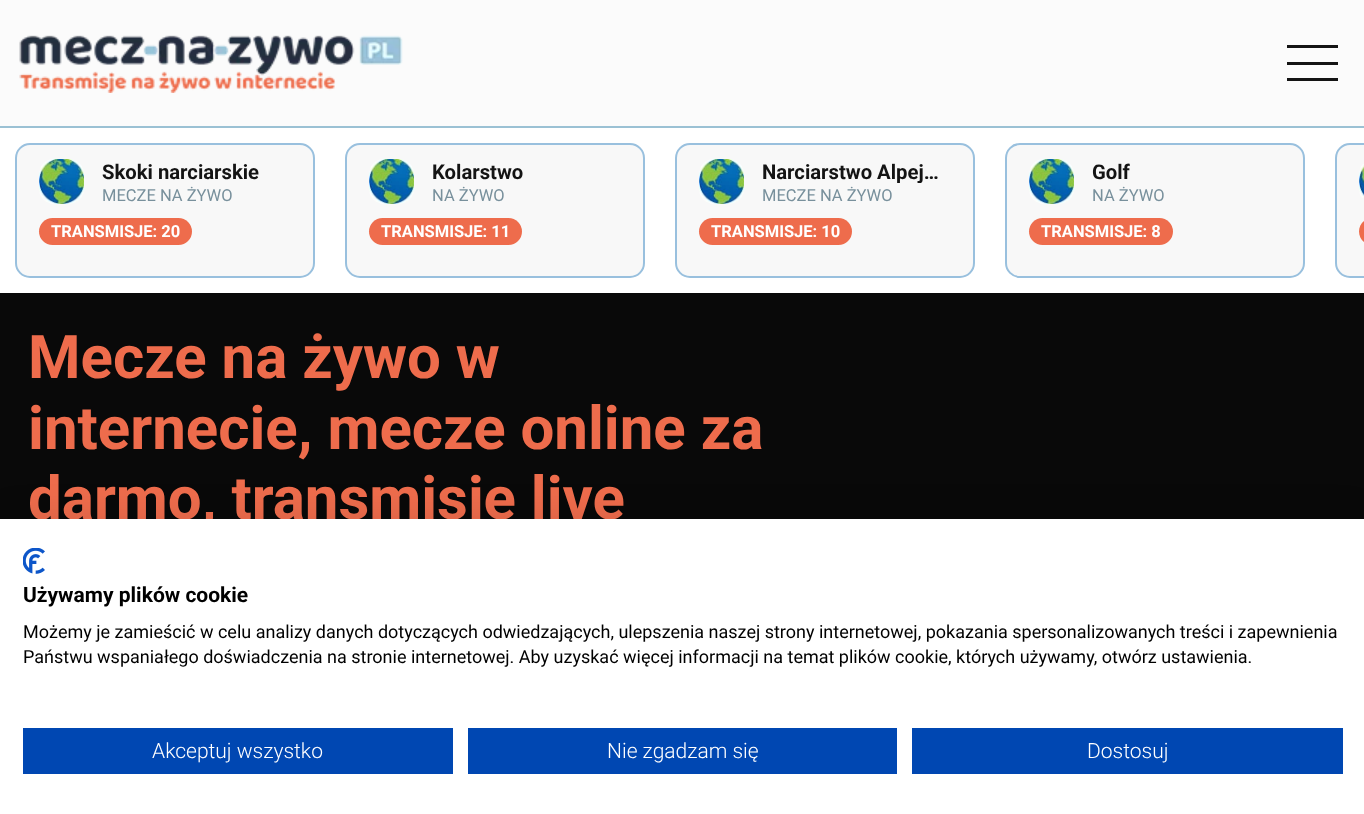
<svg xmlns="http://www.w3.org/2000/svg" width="1364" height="814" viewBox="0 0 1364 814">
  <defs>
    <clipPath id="clip1"><rect x="762" y="159" width="185" height="24"/></clipPath>
  </defs>
  <rect width="100%" height="100%" fill="rgb(255,255,255)"/>
  <rect x="0" y="0" width="1364" height="126" fill="rgb(251,251,251)"/>
  <rect x="0" y="126" width="1364" height="2" fill="rgb(155,193,212)"/>
  <image x="19" y="35" width="384" height="58" href="pic1.png"/>
  <rect x="1287" y="45" width="51" height="3" fill="rgb(20,20,20)"/>
  <rect x="1287" y="62" width="51" height="3" fill="rgb(20,20,20)"/>
  <rect x="1287" y="78" width="51" height="3" fill="rgb(20,20,20)"/>
  <rect x="16" y="144" width="298" height="133" rx="14" fill="rgb(248,248,248)" stroke="rgb(153,192,222)" stroke-width="2"/>
  <image x="39" y="159" width="45" height="45" href="pic2.png"/>
  <text x="102" y="179" font-family="Roboto" font-size="20.25" font-weight="bold" fill="rgb(20,20,20)">Skoki narciarskie</text>
  <text x="102" y="201" font-family="Roboto" font-size="16.5" fill="rgb(120,144,156)">MECZE NA ŻYWO</text>
  <rect x="39" y="218" width="153" height="27" rx="13.5" fill="rgb(238,108,76)"/>
  <text x="51" y="237" font-family="Roboto" font-size="16.5" font-weight="bold" fill="rgb(255,255,255)">TRANSMISJE: 20</text>
  <rect x="346" y="144" width="298" height="133" rx="14" fill="rgb(248,248,248)" stroke="rgb(153,192,222)" stroke-width="2"/>
  <image x="369" y="159" width="45" height="45" href="pic3.png"/>
  <text x="432" y="179" font-family="Roboto" font-size="20.25" font-weight="bold" fill="rgb(20,20,20)">Kolarstwo</text>
  <text x="432" y="201" font-family="Roboto" font-size="16.5" fill="rgb(120,144,156)">NA ŻYWO</text>
  <rect x="369" y="218" width="153" height="27" rx="13.5" fill="rgb(238,108,76)"/>
  <text x="381" y="237" font-family="Roboto" font-size="16.5" font-weight="bold" fill="rgb(255,255,255)">TRANSMISJE: 11</text>
  <rect x="676" y="144" width="298" height="133" rx="14" fill="rgb(248,248,248)" stroke="rgb(153,192,222)" stroke-width="2"/>
  <image x="699" y="159" width="45" height="45" href="pic4.png"/>
  <g clip-path="url(#clip1)">
    <text x="762" y="179" font-family="Roboto" font-size="20.25" font-weight="bold" fill="rgb(20,20,20)">Narciarstwo Alpej…</text>
  </g>
  <text x="762" y="201" font-family="Roboto" font-size="16.5" fill="rgb(120,144,156)">MECZE NA ŻYWO</text>
  <rect x="699" y="218" width="153" height="27" rx="13.5" fill="rgb(238,108,76)"/>
  <text x="711" y="237" font-family="Roboto" font-size="16.5" font-weight="bold" fill="rgb(255,255,255)">TRANSMISJE: 10</text>
  <rect x="1006" y="144" width="298" height="133" rx="14" fill="rgb(248,248,248)" stroke="rgb(153,192,222)" stroke-width="2"/>
  <image x="1029" y="159" width="45" height="45" href="pic5.png"/>
  <text x="1092" y="179" font-family="Roboto" font-size="20.25" font-weight="bold" fill="rgb(20,20,20)">Golf</text>
  <text x="1092" y="201" font-family="Roboto" font-size="16.5" fill="rgb(120,144,156)">NA ŻYWO</text>
  <rect x="1029" y="218" width="144" height="27" rx="13.5" fill="rgb(238,108,76)"/>
  <text x="1041" y="237" font-family="Roboto" font-size="16.5" font-weight="bold" fill="rgb(255,255,255)">TRANSMISJE: 8</text>
  <path d="M1350 143H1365V278H1350C1341.5 278 1335 271.5 1335 263V158C1335 149.5 1341.5 143 1350 143Z" fill="rgb(248,248,248)"/>
  <rect x="1336" y="144" width="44" height="133" rx="14" fill="none" stroke="rgb(153,192,222)" stroke-width="2"/>
  <image x="1359" y="164" width="5" height="34" href="pic6.png"/>
  <path d="M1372.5 218H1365V245H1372.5C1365 245 1359 239 1359 231.5C1359 224 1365 218 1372.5 218Z" fill="rgb(238,108,76)"/>
  <rect x="0" y="293" width="1364" height="226" fill="rgb(9,9,9)"/>
  <g font-family="Roboto" font-size="60" font-weight="bold" fill="rgb(238,108,76)">
    <text>
      <tspan x="28" y="378">Mecze na żywo w</tspan>
      <tspan x="28" y="449">internecie, mecze online za</tspan>
      <tspan x="28" y="519">darmo, transmisje live</tspan>
    </text>
  </g>
  <rect x="0" y="519" width="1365" height="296" fill="rgba(0,0,0,0.1)" filter="blur(18px)"/>
  <rect x="0" y="519" width="1364" height="295" fill="rgb(255,255,255)"/>
  <image x="23" y="548" width="22" height="26" href="pic7.png"/>
  <text x="23" y="602" font-family="Roboto" font-size="21" font-weight="bold" fill="rgb(0,0,0)">Używamy plików cookie</text>
  <g font-family="Roboto" font-size="18" fill="rgb(0,0,0)">
    <text>
      <tspan x="23" y="638">Możemy je zamieścić w celu analizy danych dotyczących odwiedzających, ulepszenia naszej strony internetowej, pokazania spersonalizowanych treści i zapewnienia</tspan>
      <tspan x="23" y="663">Państwu wspaniałego doświadczenia na stronie internetowej. Aby uzyskać więcej informacji na temat plików cookie, których używamy, otwórz ustawienia.</tspan>
    </text>
  </g>
  <rect x="23" y="728" width="430" height="46" fill="rgb(0,71,178)"/>
  <text x="152" y="758" font-family="Roboto" font-size="21" font-weight="300" fill="rgb(255,255,255)">Akceptuj wszystko</text>
  <rect x="468" y="728" width="429" height="46" fill="rgb(0,71,178)"/>
  <text x="607" y="758" font-family="Roboto" font-size="21" font-weight="300" fill="rgb(255,255,255)">Nie zgadzam się</text>
  <rect x="912" y="728" width="431" height="46" fill="rgb(0,71,178)"/>
  <text x="1087" y="758" font-family="Roboto" font-size="21" font-weight="300" fill="rgb(255,255,255)">Dostosuj</text>
</svg>
